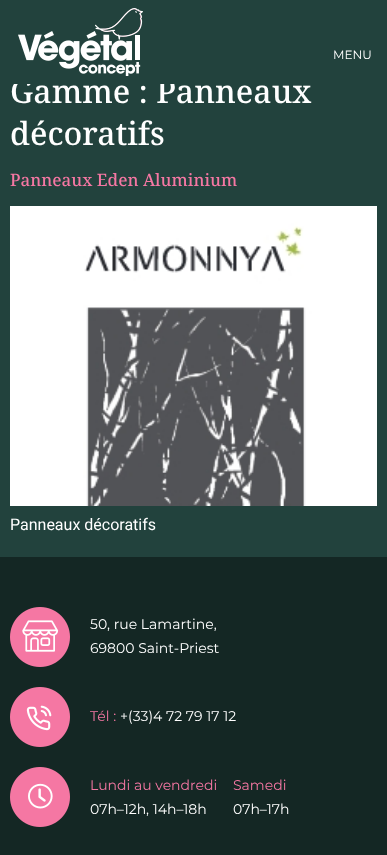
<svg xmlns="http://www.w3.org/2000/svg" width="387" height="855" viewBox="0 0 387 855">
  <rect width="100%" height="100%" fill="rgb(34,66,61)"/>
  <text x="10" y="103" font-family="Noto Serif" font-size="32" font-weight="500" fill="rgb(255,255,255)">Gamme : Panneaux</text>
  <rect x="14" y="79" width="161" height="5" fill="rgb(34,66,61)"/>
  <image x="18" y="8" width="125" height="68" href="pic1.png"/>
  <text x="333" y="59" font-family="Montserrat" font-size="12" fill="rgb(255,255,255)">MENU</text>
  <text x="10" y="145" font-family="Noto Serif" font-size="32" font-weight="500" fill="rgb(255,255,255)">décoratifs</text>
  <text x="10" y="186" font-family="Noto Serif" font-size="17" font-weight="500" fill="rgb(245,119,163)">Panneaux Eden Aluminium</text>
  <image x="10" y="206" width="367" height="300" href="pic2.png"/>
  <text x="10" y="530" font-family="Roboto" font-size="16" fill="rgb(255,255,255)">Panneaux décoratifs</text>
  <rect x="0" y="557" width="387" height="298" fill="rgb(20,39,36)"/>
  <image x="10" y="607" width="60" height="60" href="pic3.png"/>
  <g font-family="Montserrat" font-size="14" fill="rgb(255,255,255)">
    <text>
      <tspan x="90" y="629">50, rue Lamartine,</tspan>
      <tspan x="90" y="653">69800 Saint-Priest</tspan>
    </text>
  </g>
  <image x="10" y="687" width="60" height="60" href="pic4.png"/>
  <text x="90" y="721" font-family="Montserrat" font-size="14" fill="rgb(245,119,163)">Tél :</text>
  <text x="120" y="721" font-family="Montserrat" font-size="14" fill="rgb(255,255,255)">+(33)4 72 79 17 12</text>
  <image x="10" y="767" width="60" height="60" href="pic5.png"/>
  <text x="90" y="790" font-family="Montserrat" font-size="14" fill="rgb(245,119,163)">Lundi au vendredi</text>
  <text x="90" y="814" font-family="Montserrat" font-size="14" fill="rgb(255,255,255)">07h–12h, 14h–18h</text>
  <text x="233" y="790" font-family="Montserrat" font-size="14" fill="rgb(245,119,163)">Samedi</text>
  <text x="233" y="814" font-family="Montserrat" font-size="14" fill="rgb(255,255,255)">07h–17h</text>
</svg>
